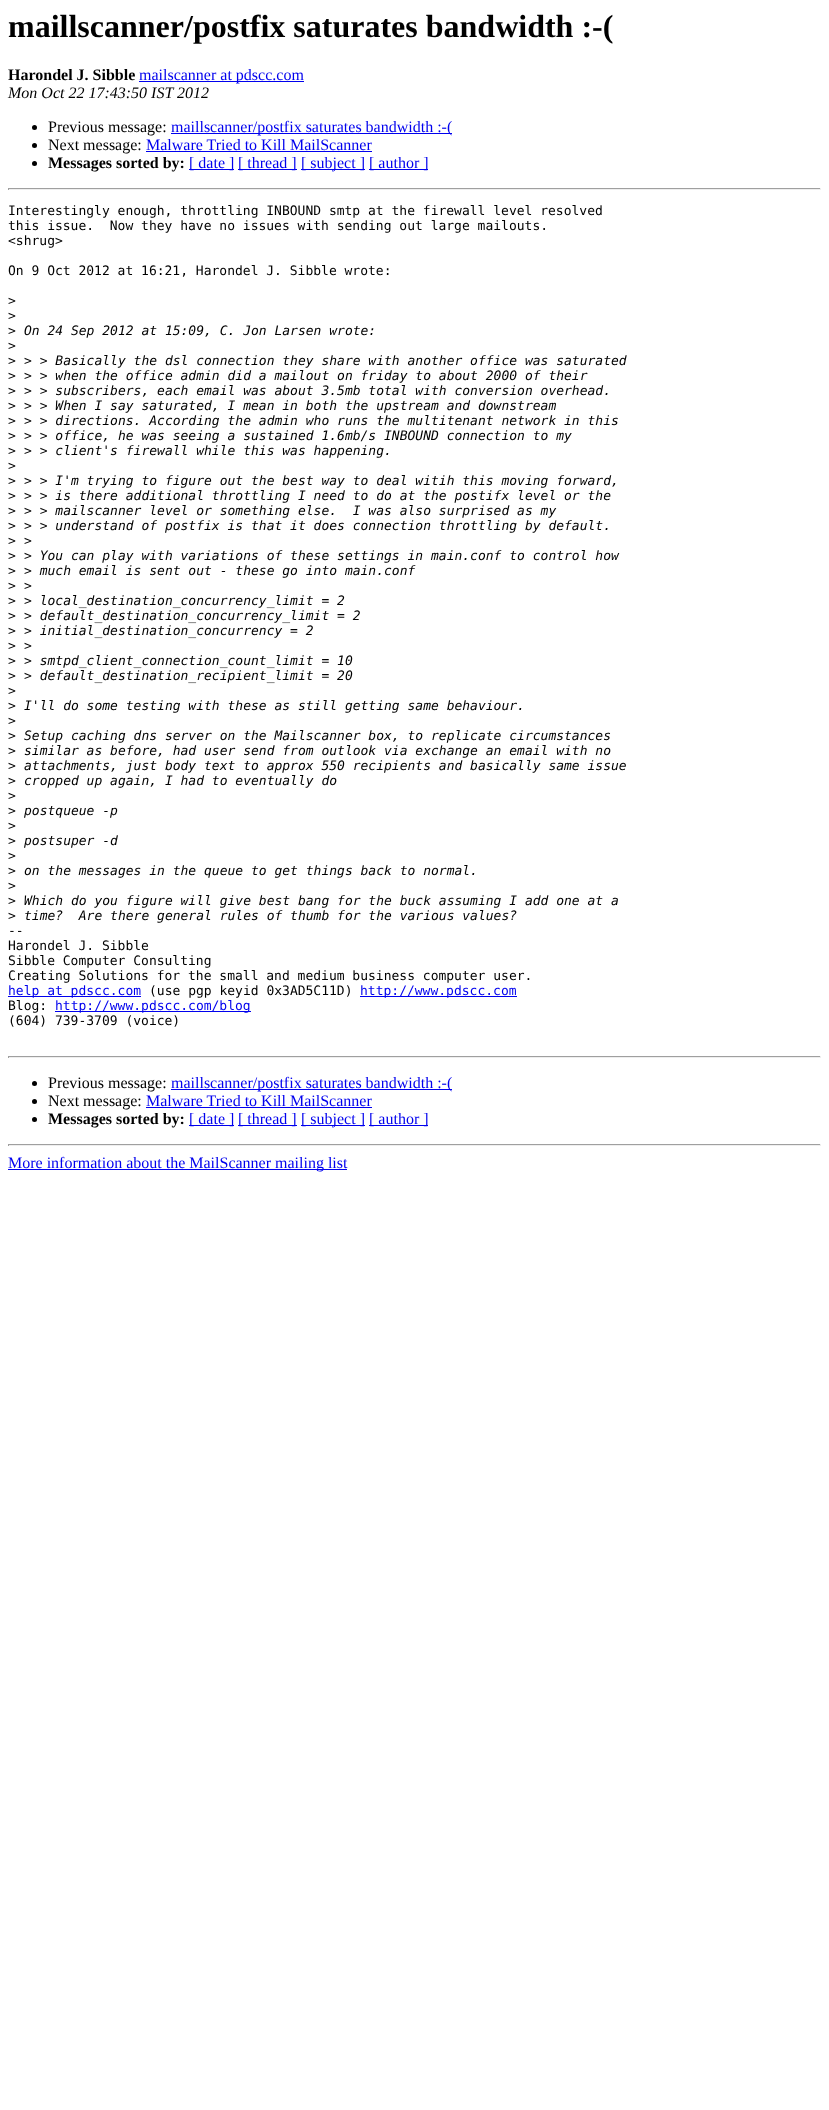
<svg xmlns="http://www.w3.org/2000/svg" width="829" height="2110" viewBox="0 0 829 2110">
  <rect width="100%" height="100%" fill="rgb(255,255,255)"/>
  <text x="8" y="37" font-family="Liberation Serif" font-size="32" font-weight="bold" fill="rgb(0,0,0)">maillscanner/postfix saturates bandwidth :-(</text>
  <text x="8" y="80" font-family="Liberation Serif" font-size="16" font-weight="bold" fill="rgb(0,0,0)">Harondel J. Sibble</text>
  <rect x="139" y="81" width="165" height="1" fill="rgb(0,0,238)"/>
  <text x="139" y="80" font-family="Liberation Serif" font-size="16" fill="rgb(0,0,238)">mailscanner at pdscc.com</text>
  <text x="8" y="98" font-family="Liberation Serif" font-size="16" font-style="italic" fill="rgb(0,0,0)">Mon Oct 22 17:43:50 IST 2012</text>
  <circle cx="34.5" cy="127.5" r="2.5" fill="rgb(0,0,0)"/>
  <text x="48" y="132" font-family="Liberation Serif" font-size="16" fill="rgb(0,0,0)">Previous message:</text>
  <rect x="171" y="133" width="281" height="1" fill="rgb(0,0,238)"/>
  <text x="171" y="132" font-family="Liberation Serif" font-size="16" fill="rgb(0,0,238)">maillscanner/postfix saturates bandwidth :-(</text>
  <circle cx="34.5" cy="145.5" r="2.5" fill="rgb(0,0,0)"/>
  <text x="48" y="150" font-family="Liberation Serif" font-size="16" fill="rgb(0,0,0)">Next message:</text>
  <text x="146" y="150" font-family="Liberation Serif" font-size="16" fill="rgb(0,0,238)">Malware Tried to Kill MailScanner</text>
  <rect x="146" y="151" width="226" height="1" fill="rgb(0,0,238)"/>
  <circle cx="34.5" cy="163.5" r="2.5" fill="rgb(0,0,0)"/>
  <text x="48" y="168" font-family="Liberation Serif" font-size="16" font-weight="bold" fill="rgb(0,0,0)">Messages sorted by:</text>
  <rect x="189" y="169" width="45" height="1" fill="rgb(0,0,238)"/>
  <text x="189" y="168" font-family="Liberation Serif" font-size="16" fill="rgb(0,0,238)">[ date ]</text>
  <rect x="238" y="169" width="59" height="1" fill="rgb(0,0,238)"/>
  <text x="238" y="168" font-family="Liberation Serif" font-size="16" fill="rgb(0,0,238)">[ thread ]</text>
  <rect x="301" y="169" width="64" height="1" fill="rgb(0,0,238)"/>
  <text x="301" y="168" font-family="Liberation Serif" font-size="16" fill="rgb(0,0,238)">[ subject ]</text>
  <rect x="369" y="169" width="59" height="1" fill="rgb(0,0,238)"/>
  <text x="369" y="168" font-family="Liberation Serif" font-size="16" fill="rgb(0,0,238)">[ author ]</text>
  <rect x="8" y="188" width="813" height="1" fill="rgb(159,159,159)"/>
  <rect x="820" y="188" width="1" height="2" fill="rgb(238,238,238)"/>
  <rect x="8" y="189" width="813" height="1" fill="rgb(238,238,238)"/>
  <rect x="8" y="188" width="1" height="2" fill="rgb(159,159,159)"/>
  <g font-family="DejaVu Sans Mono" font-size="13" fill="rgb(0,0,0)">
    <text xml:space="preserve"><tspan x="8" y="215">Interestingly enough, throttling INBOUND smtp at the firewall level resolved</tspan><tspan x="8" y="230">this issue.  Now they have no issues with sending out large mailouts.</tspan><tspan x="8" y="245">&lt;shrug&gt;</tspan></text>
    <text x="8" y="275">On 9 Oct 2012 at 16:21, Harondel J. Sibble wrote:</text>
    <text>
      <tspan x="8" y="305">&gt;</tspan>
      <tspan x="8" y="320">&gt;</tspan>
      <tspan x="8" y="335">&gt;</tspan>
    </text>
  </g>
  <text x="24" y="335" font-family="DejaVu Sans Mono" font-size="13" font-style="italic" fill="rgb(0,0,0)">On 24 Sep 2012 at 15:09, C. Jon Larsen wrote:</text>
  <g font-family="DejaVu Sans Mono" font-size="13" fill="rgb(0,0,0)">
    <text>
      <tspan x="8" y="350">&gt;</tspan>
      <tspan x="8" y="365">&gt;</tspan>
    </text>
  </g>
  <text x="24" y="365" font-family="DejaVu Sans Mono" font-size="13" font-style="italic" fill="rgb(0,0,0)">&gt; &gt; Basically the dsl connection they share with another office was saturated</text>
  <text x="8" y="380" font-family="DejaVu Sans Mono" font-size="13" fill="rgb(0,0,0)">&gt;</text>
  <text x="24" y="380" font-family="DejaVu Sans Mono" font-size="13" font-style="italic" fill="rgb(0,0,0)">&gt; &gt; when the office admin did a mailout on friday to about 2000 of their</text>
  <text x="8" y="395" font-family="DejaVu Sans Mono" font-size="13" fill="rgb(0,0,0)">&gt;</text>
  <text x="24" y="395" font-family="DejaVu Sans Mono" font-size="13" font-style="italic" fill="rgb(0,0,0)">&gt; &gt; subscribers, each email was about 3.5mb total with conversion overhead.</text>
  <text x="8" y="410" font-family="DejaVu Sans Mono" font-size="13" fill="rgb(0,0,0)">&gt;</text>
  <text x="24" y="410" font-family="DejaVu Sans Mono" font-size="13" font-style="italic" fill="rgb(0,0,0)">&gt; &gt; When I say saturated, I mean in both the upstream and downstream</text>
  <text x="8" y="425" font-family="DejaVu Sans Mono" font-size="13" fill="rgb(0,0,0)">&gt;</text>
  <text x="24" y="425" font-family="DejaVu Sans Mono" font-size="13" font-style="italic" fill="rgb(0,0,0)">&gt; &gt; directions. According the admin who runs the multitenant network in this</text>
  <text x="8" y="440" font-family="DejaVu Sans Mono" font-size="13" fill="rgb(0,0,0)">&gt;</text>
  <text x="24" y="440" font-family="DejaVu Sans Mono" font-size="13" font-style="italic" fill="rgb(0,0,0)">&gt; &gt; office, he was seeing a sustained 1.6mb/s INBOUND connection to my</text>
  <text x="8" y="455" font-family="DejaVu Sans Mono" font-size="13" fill="rgb(0,0,0)">&gt;</text>
  <text x="24" y="455" font-family="DejaVu Sans Mono" font-size="13" font-style="italic" fill="rgb(0,0,0)">&gt; &gt; client's firewall while this was happening.</text>
  <g font-family="DejaVu Sans Mono" font-size="13" fill="rgb(0,0,0)">
    <text>
      <tspan x="8" y="470">&gt;</tspan>
      <tspan x="8" y="485">&gt;</tspan>
    </text>
  </g>
  <text x="24" y="485" font-family="DejaVu Sans Mono" font-size="13" font-style="italic" fill="rgb(0,0,0)">&gt; &gt; I'm trying to figure out the best way to deal witih this moving forward,</text>
  <text x="8" y="500" font-family="DejaVu Sans Mono" font-size="13" fill="rgb(0,0,0)">&gt;</text>
  <text x="24" y="500" font-family="DejaVu Sans Mono" font-size="13" font-style="italic" fill="rgb(0,0,0)">&gt; &gt; is there additional throttling I need to do at the postifx level or the</text>
  <text x="8" y="515" font-family="DejaVu Sans Mono" font-size="13" fill="rgb(0,0,0)">&gt;</text>
  <text x="24" y="515" font-family="DejaVu Sans Mono" font-size="13" font-style="italic" fill="rgb(0,0,0)" xml:space="preserve">&gt; &gt; mailscanner level or something else.  I was also surprised as my</text>
  <text x="8" y="530" font-family="DejaVu Sans Mono" font-size="13" fill="rgb(0,0,0)">&gt;</text>
  <text x="24" y="530" font-family="DejaVu Sans Mono" font-size="13" font-style="italic" fill="rgb(0,0,0)">&gt; &gt; understand of postfix is that it does connection throttling by default.</text>
  <text x="8" y="545" font-family="DejaVu Sans Mono" font-size="13" fill="rgb(0,0,0)">&gt;</text>
  <text x="24" y="545" font-family="DejaVu Sans Mono" font-size="13" font-style="italic" fill="rgb(0,0,0)">&gt;</text>
  <text x="8" y="560" font-family="DejaVu Sans Mono" font-size="13" fill="rgb(0,0,0)">&gt;</text>
  <text x="24" y="560" font-family="DejaVu Sans Mono" font-size="13" font-style="italic" fill="rgb(0,0,0)">&gt; You can play with variations of these settings in main.conf to control how</text>
  <text x="8" y="575" font-family="DejaVu Sans Mono" font-size="13" fill="rgb(0,0,0)">&gt;</text>
  <text x="24" y="575" font-family="DejaVu Sans Mono" font-size="13" font-style="italic" fill="rgb(0,0,0)">&gt; much email is sent out - these go into main.conf</text>
  <text x="8" y="590" font-family="DejaVu Sans Mono" font-size="13" fill="rgb(0,0,0)">&gt;</text>
  <text x="24" y="590" font-family="DejaVu Sans Mono" font-size="13" font-style="italic" fill="rgb(0,0,0)">&gt;</text>
  <text x="8" y="605" font-family="DejaVu Sans Mono" font-size="13" fill="rgb(0,0,0)">&gt;</text>
  <text x="24" y="605" font-family="DejaVu Sans Mono" font-size="13" font-style="italic" fill="rgb(0,0,0)">&gt; local_destination_concurrency_limit = 2</text>
  <text x="8" y="620" font-family="DejaVu Sans Mono" font-size="13" fill="rgb(0,0,0)">&gt;</text>
  <text x="24" y="620" font-family="DejaVu Sans Mono" font-size="13" font-style="italic" fill="rgb(0,0,0)">&gt; default_destination_concurrency_limit = 2</text>
  <text x="8" y="635" font-family="DejaVu Sans Mono" font-size="13" fill="rgb(0,0,0)">&gt;</text>
  <text x="24" y="635" font-family="DejaVu Sans Mono" font-size="13" font-style="italic" fill="rgb(0,0,0)">&gt; initial_destination_concurrency = 2</text>
  <text x="8" y="650" font-family="DejaVu Sans Mono" font-size="13" fill="rgb(0,0,0)">&gt;</text>
  <text x="24" y="650" font-family="DejaVu Sans Mono" font-size="13" font-style="italic" fill="rgb(0,0,0)">&gt;</text>
  <text x="8" y="665" font-family="DejaVu Sans Mono" font-size="13" fill="rgb(0,0,0)">&gt;</text>
  <text x="24" y="665" font-family="DejaVu Sans Mono" font-size="13" font-style="italic" fill="rgb(0,0,0)">&gt; smtpd_client_connection_count_limit = 10</text>
  <text x="8" y="680" font-family="DejaVu Sans Mono" font-size="13" fill="rgb(0,0,0)">&gt;</text>
  <text x="24" y="680" font-family="DejaVu Sans Mono" font-size="13" font-style="italic" fill="rgb(0,0,0)">&gt; default_destination_recipient_limit = 20</text>
  <g font-family="DejaVu Sans Mono" font-size="13" fill="rgb(0,0,0)">
    <text>
      <tspan x="8" y="695">&gt;</tspan>
      <tspan x="8" y="710">&gt;</tspan>
    </text>
  </g>
  <text x="24" y="710" font-family="DejaVu Sans Mono" font-size="13" font-style="italic" fill="rgb(0,0,0)">I'll do some testing with these as still getting same behaviour.</text>
  <g font-family="DejaVu Sans Mono" font-size="13" fill="rgb(0,0,0)">
    <text>
      <tspan x="8" y="725">&gt;</tspan>
      <tspan x="8" y="740">&gt;</tspan>
    </text>
  </g>
  <text x="24" y="740" font-family="DejaVu Sans Mono" font-size="13" font-style="italic" fill="rgb(0,0,0)">Setup caching dns server on the Mailscanner box, to replicate circumstances</text>
  <text x="8" y="755" font-family="DejaVu Sans Mono" font-size="13" fill="rgb(0,0,0)">&gt;</text>
  <text x="24" y="755" font-family="DejaVu Sans Mono" font-size="13" font-style="italic" fill="rgb(0,0,0)">similar as before, had user send from outlook via exchange an email with no</text>
  <text x="8" y="770" font-family="DejaVu Sans Mono" font-size="13" fill="rgb(0,0,0)">&gt;</text>
  <text x="24" y="770" font-family="DejaVu Sans Mono" font-size="13" font-style="italic" fill="rgb(0,0,0)">attachments, just body text to approx 550 recipients and basically same issue</text>
  <text x="8" y="785" font-family="DejaVu Sans Mono" font-size="13" fill="rgb(0,0,0)">&gt;</text>
  <text x="24" y="785" font-family="DejaVu Sans Mono" font-size="13" font-style="italic" fill="rgb(0,0,0)">cropped up again, I had to eventually do</text>
  <g font-family="DejaVu Sans Mono" font-size="13" fill="rgb(0,0,0)">
    <text>
      <tspan x="8" y="800">&gt;</tspan>
      <tspan x="8" y="815">&gt;</tspan>
    </text>
  </g>
  <text x="24" y="815" font-family="DejaVu Sans Mono" font-size="13" font-style="italic" fill="rgb(0,0,0)">postqueue -p</text>
  <g font-family="DejaVu Sans Mono" font-size="13" fill="rgb(0,0,0)">
    <text>
      <tspan x="8" y="830">&gt;</tspan>
      <tspan x="8" y="845">&gt;</tspan>
    </text>
  </g>
  <text x="24" y="845" font-family="DejaVu Sans Mono" font-size="13" font-style="italic" fill="rgb(0,0,0)">postsuper -d</text>
  <g font-family="DejaVu Sans Mono" font-size="13" fill="rgb(0,0,0)">
    <text>
      <tspan x="8" y="860">&gt;</tspan>
      <tspan x="8" y="875">&gt;</tspan>
    </text>
  </g>
  <text x="24" y="875" font-family="DejaVu Sans Mono" font-size="13" font-style="italic" fill="rgb(0,0,0)">on the messages in the queue to get things back to normal.</text>
  <g font-family="DejaVu Sans Mono" font-size="13" fill="rgb(0,0,0)">
    <text>
      <tspan x="8" y="890">&gt;</tspan>
      <tspan x="8" y="905">&gt;</tspan>
    </text>
  </g>
  <text x="24" y="905" font-family="DejaVu Sans Mono" font-size="13" font-style="italic" fill="rgb(0,0,0)">Which do you figure will give best bang for the buck assuming I add one at a</text>
  <text x="8" y="920" font-family="DejaVu Sans Mono" font-size="13" fill="rgb(0,0,0)">&gt;</text>
  <text x="24" y="920" font-family="DejaVu Sans Mono" font-size="13" font-style="italic" fill="rgb(0,0,0)" xml:space="preserve">time?  Are there general rules of thumb for the various values?</text>
  <g font-family="DejaVu Sans Mono" font-size="13" fill="rgb(0,0,0)">
    <text>
      <tspan x="8" y="935">--</tspan>
      <tspan x="8" y="950">Harondel J. Sibble</tspan>
      <tspan x="8" y="965">Sibble Computer Consulting</tspan>
      <tspan x="8" y="980">Creating Solutions for the small and medium business computer user.</tspan>
    </text>
  </g>
  <rect x="8" y="996" width="133" height="1" fill="rgb(0,0,238)"/>
  <text x="8" y="995" font-family="DejaVu Sans Mono" font-size="13" fill="rgb(0,0,238)">help at pdscc.com</text>
  <text x="149" y="995" font-family="DejaVu Sans Mono" font-size="13" fill="rgb(0,0,0)">(use pgp keyid 0x3AD5C11D)</text>
  <rect x="360" y="996" width="157" height="1" fill="rgb(0,0,238)"/>
  <text x="360" y="995" font-family="DejaVu Sans Mono" font-size="13" fill="rgb(0,0,238)">http://www.pdscc.com</text>
  <text x="8" y="1010" font-family="DejaVu Sans Mono" font-size="13" fill="rgb(0,0,0)">Blog:</text>
  <rect x="55" y="1011" width="196" height="1" fill="rgb(0,0,238)"/>
  <text x="55" y="1010" font-family="DejaVu Sans Mono" font-size="13" fill="rgb(0,0,238)">http://www.pdscc.com/blog</text>
  <text x="8" y="1025" font-family="DejaVu Sans Mono" font-size="13" fill="rgb(0,0,0)">(604) 739-3709 (voice)</text>
  <rect x="8" y="1056" width="813" height="1" fill="rgb(159,159,159)"/>
  <rect x="820" y="1056" width="1" height="2" fill="rgb(238,238,238)"/>
  <rect x="8" y="1057" width="813" height="1" fill="rgb(238,238,238)"/>
  <rect x="8" y="1056" width="1" height="2" fill="rgb(159,159,159)"/>
  <circle cx="34.5" cy="1083.5" r="2.5" fill="rgb(0,0,0)"/>
  <text x="48" y="1088" font-family="Liberation Serif" font-size="16" fill="rgb(0,0,0)">Previous message:</text>
  <rect x="171" y="1089" width="281" height="1" fill="rgb(0,0,238)"/>
  <text x="171" y="1088" font-family="Liberation Serif" font-size="16" fill="rgb(0,0,238)">maillscanner/postfix saturates bandwidth :-(</text>
  <circle cx="34.5" cy="1101.5" r="2.5" fill="rgb(0,0,0)"/>
  <text x="48" y="1106" font-family="Liberation Serif" font-size="16" fill="rgb(0,0,0)">Next message:</text>
  <text x="146" y="1106" font-family="Liberation Serif" font-size="16" fill="rgb(0,0,238)">Malware Tried to Kill MailScanner</text>
  <rect x="146" y="1107" width="226" height="1" fill="rgb(0,0,238)"/>
  <circle cx="34.5" cy="1119.5" r="2.5" fill="rgb(0,0,0)"/>
  <text x="48" y="1124" font-family="Liberation Serif" font-size="16" font-weight="bold" fill="rgb(0,0,0)">Messages sorted by:</text>
  <rect x="189" y="1125" width="45" height="1" fill="rgb(0,0,238)"/>
  <text x="189" y="1124" font-family="Liberation Serif" font-size="16" fill="rgb(0,0,238)">[ date ]</text>
  <rect x="238" y="1125" width="59" height="1" fill="rgb(0,0,238)"/>
  <text x="238" y="1124" font-family="Liberation Serif" font-size="16" fill="rgb(0,0,238)">[ thread ]</text>
  <rect x="301" y="1125" width="64" height="1" fill="rgb(0,0,238)"/>
  <text x="301" y="1124" font-family="Liberation Serif" font-size="16" fill="rgb(0,0,238)">[ subject ]</text>
  <rect x="369" y="1125" width="59" height="1" fill="rgb(0,0,238)"/>
  <text x="369" y="1124" font-family="Liberation Serif" font-size="16" fill="rgb(0,0,238)">[ author ]</text>
  <rect x="8" y="1144" width="813" height="1" fill="rgb(159,159,159)"/>
  <rect x="820" y="1144" width="1" height="2" fill="rgb(238,238,238)"/>
  <rect x="8" y="1145" width="813" height="1" fill="rgb(238,238,238)"/>
  <rect x="8" y="1144" width="1" height="2" fill="rgb(159,159,159)"/>
  <rect x="8" y="1169" width="339" height="1" fill="rgb(0,0,238)"/>
  <text x="8" y="1168" font-family="Liberation Serif" font-size="16" fill="rgb(0,0,238)">More information about the MailScanner mailing list</text>
</svg>
